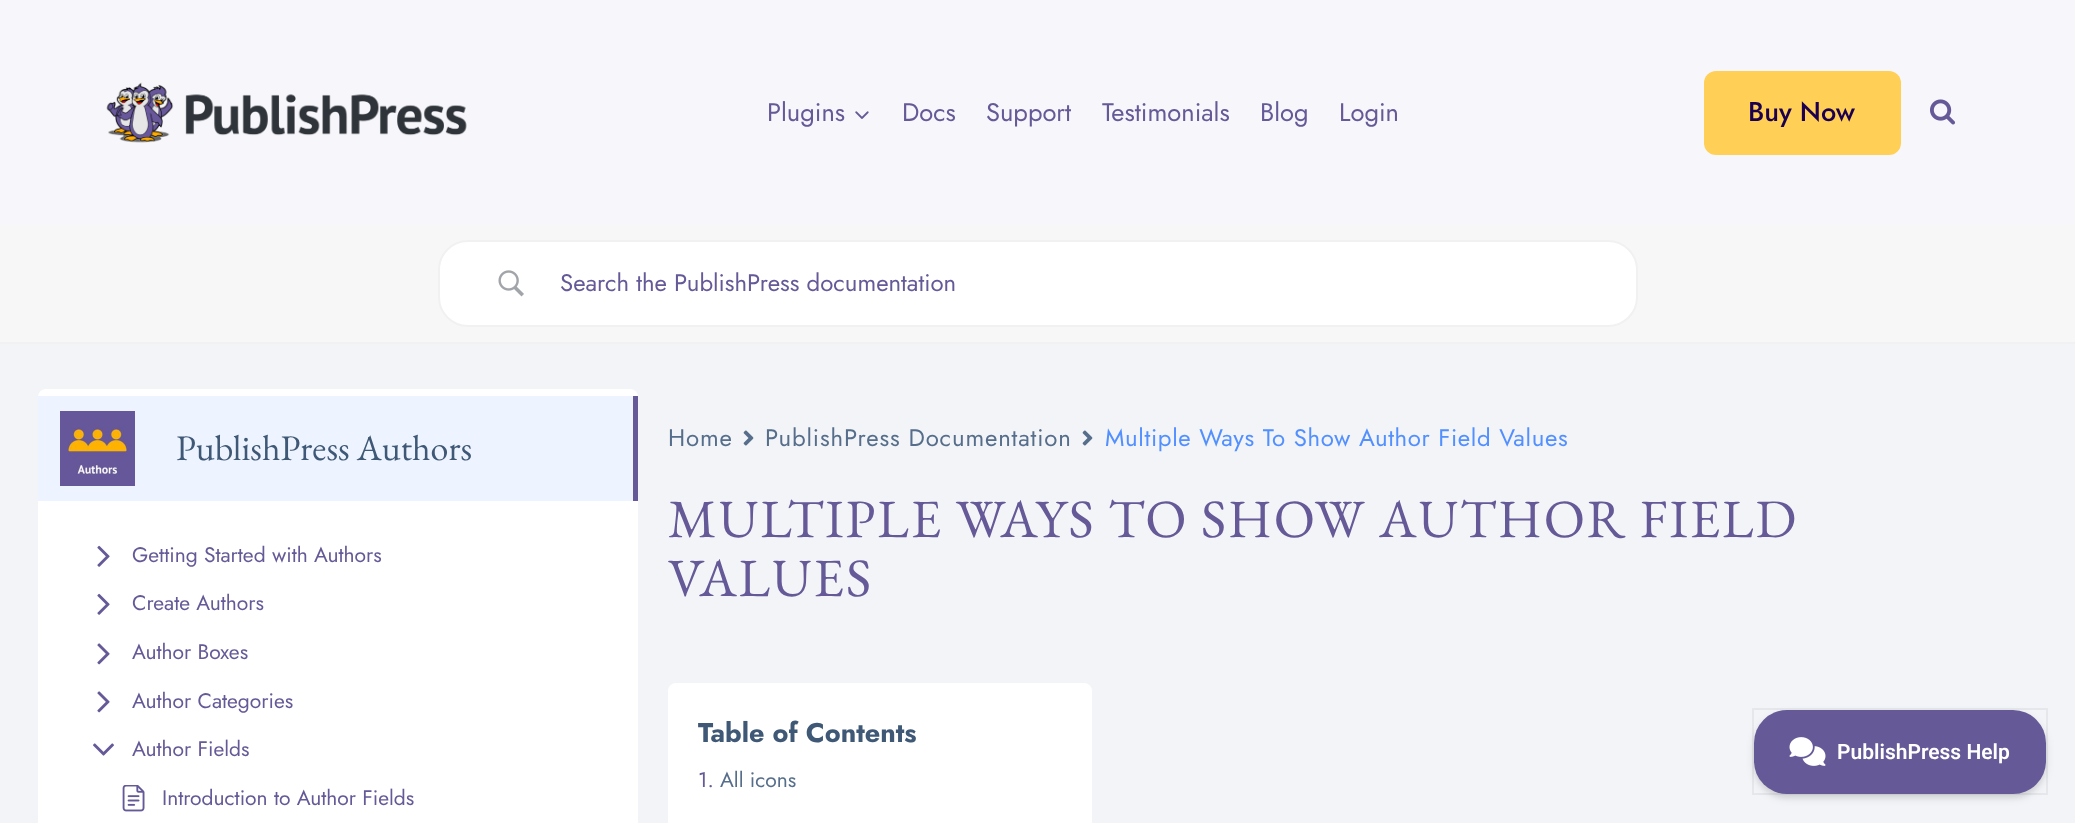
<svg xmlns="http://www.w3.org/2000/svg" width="2075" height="823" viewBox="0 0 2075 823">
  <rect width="100%" height="100%" fill="rgb(247,246,250)"/>
  <image x="106" y="82" width="361" height="61" href="pic1.png"/>
  <text x="767" y="121" font-family="Jost" font-size="25.5" fill="rgb(101,89,151)">Plugins</text>
  <image x="855" y="111" width="14" height="8" href="pic2.png"/>
  <g font-family="Jost" font-size="25.5" fill="rgb(101,89,151)">
    <text x="902" y="121">Docs</text>
    <text x="986" y="121">Support</text>
    <text x="1102" y="121">Testimonials</text>
    <text x="1260" y="121">Blog</text>
    <text x="1339" y="121">Login</text>
  </g>
  <rect x="1704" y="71" width="197" height="84" rx="12" fill="rgb(255,207,86)"/>
  <text x="1748" y="121" font-family="Jost" font-size="27" font-weight="500" fill="rgb(27,0,79)">Buy Now</text>
  <image x="1930" y="99" width="25" height="26" href="pic3.png"/>
  <rect x="0" y="344" width="2075" height="479" fill="rgb(242,244,247)"/>
  <rect x="0" y="225" width="2075" height="117" fill="rgb(247,247,247)"/>
  <rect x="0" y="342" width="2075" height="2" fill="rgb(241,241,241)"/>
  <rect x="439" y="241" width="1198" height="85" rx="29" fill="rgb(255,255,255)" stroke="rgb(241,241,241)" stroke-width="2"/>
  <image x="498" y="270" width="26" height="27" href="pic4.png"/>
  <text x="560" y="291" font-family="Jost" font-size="24" fill="rgb(101,89,151)">Search the PublishPress documentation</text>
  <rect x="38" y="389" width="600" height="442" rx="8" fill="rgb(255,255,255)"/>
  <rect x="38" y="396" width="595" height="105" fill="rgb(238,244,255)"/>
  <rect x="633" y="396" width="5" height="105" fill="rgb(101,89,151)"/>
  <image x="60" y="411" width="75" height="75" href="pic5.png"/>
  <text x="176" y="460" font-family="EB Garamond" font-size="36" fill="rgb(63,88,118)">PublishPress Authors</text>
  <image x="97" y="545" width="13" height="22" href="pic6.png"/>
  <text x="132" y="562" font-family="Jost" font-size="21" fill="rgb(101,89,151)">Getting Started with Authors</text>
  <image x="97" y="593" width="13" height="22" href="pic6.png"/>
  <text x="132" y="610" font-family="Jost" font-size="21" fill="rgb(101,89,151)">Create Authors</text>
  <image x="97" y="643" width="13" height="22" href="pic7.png"/>
  <text x="132" y="659" font-family="Jost" font-size="21" fill="rgb(101,89,151)">Author Boxes</text>
  <image x="97" y="691" width="13" height="22" href="pic7.png"/>
  <text x="132" y="708" font-family="Jost" font-size="21" fill="rgb(101,89,151)">Author Categories</text>
  <image x="93" y="743" width="21" height="13" href="pic8.png"/>
  <text x="132" y="756" font-family="Jost" font-size="21" fill="rgb(101,89,151)">Author Fields</text>
  <image x="122" y="785" width="23" height="27" href="pic9.png"/>
  <text x="162" y="805" font-family="Jost" font-size="21" fill="rgb(101,89,151)">Introduction to Author Fields</text>
  <text x="668" y="446" font-family="Jost" font-size="24" letter-spacing="0.85" fill="rgb(86,110,139)">Home</text>
  <image x="743" y="430" width="11" height="16" href="pic10.png"/>
  <text x="765" y="446" font-family="Jost" font-size="24" letter-spacing="0.85" fill="rgb(86,110,139)">PublishPress Documentation</text>
  <image x="1082" y="430" width="11" height="16" href="pic10.png"/>
  <text x="1105" y="446" font-family="Jost" font-size="24" letter-spacing="0.65" fill="rgb(82,143,255)">Multiple Ways To Show Author Field Values</text>
  <g font-family="EB Garamond" font-size="54" letter-spacing="1.9" fill="rgb(101,89,151)">
    <text>
      <tspan x="668" y="537">MULTIPLE WAYS TO SHOW AUTHOR FIELD</tspan>
      <tspan x="668" y="596">VALUES</tspan>
    </text>
  </g>
  <rect x="668" y="683" width="424" height="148" rx="8" fill="rgb(255,255,255)"/>
  <text x="698" y="742" font-family="Jost" font-size="27" font-weight="bold" fill="rgb(63,88,118)">Table of Contents</text>
  <text x="698" y="787" font-family="Jost" font-size="21" fill="rgb(101,89,151)">1.</text>
  <text x="720" y="787" font-family="Jost" font-size="21" fill="rgb(86,110,139)">All icons</text>
  <rect x="1754" y="714" width="292" height="84" rx="33" fill="rgba(0,0,0,0.05)" filter="blur(2px)"/>
  <rect x="1754" y="714" width="292" height="84" rx="33" fill="rgba(0,0,0,0.1)" filter="blur(4px)"/>
  <rect x="1753" y="709" width="294" height="85" fill="none" stroke="rgba(0,0,0,0.05)" stroke-width="2"/>
  <rect x="1754" y="710" width="292" height="84" rx="33" fill="rgb(101,89,151)"/>
  <image x="1789" y="737" width="37" height="29" href="pic11.png"/>
  <text x="1837" y="759" font-family="Roboto" font-size="21" font-weight="600" fill="rgb(255,255,255)">PublishPress Help</text>
</svg>
